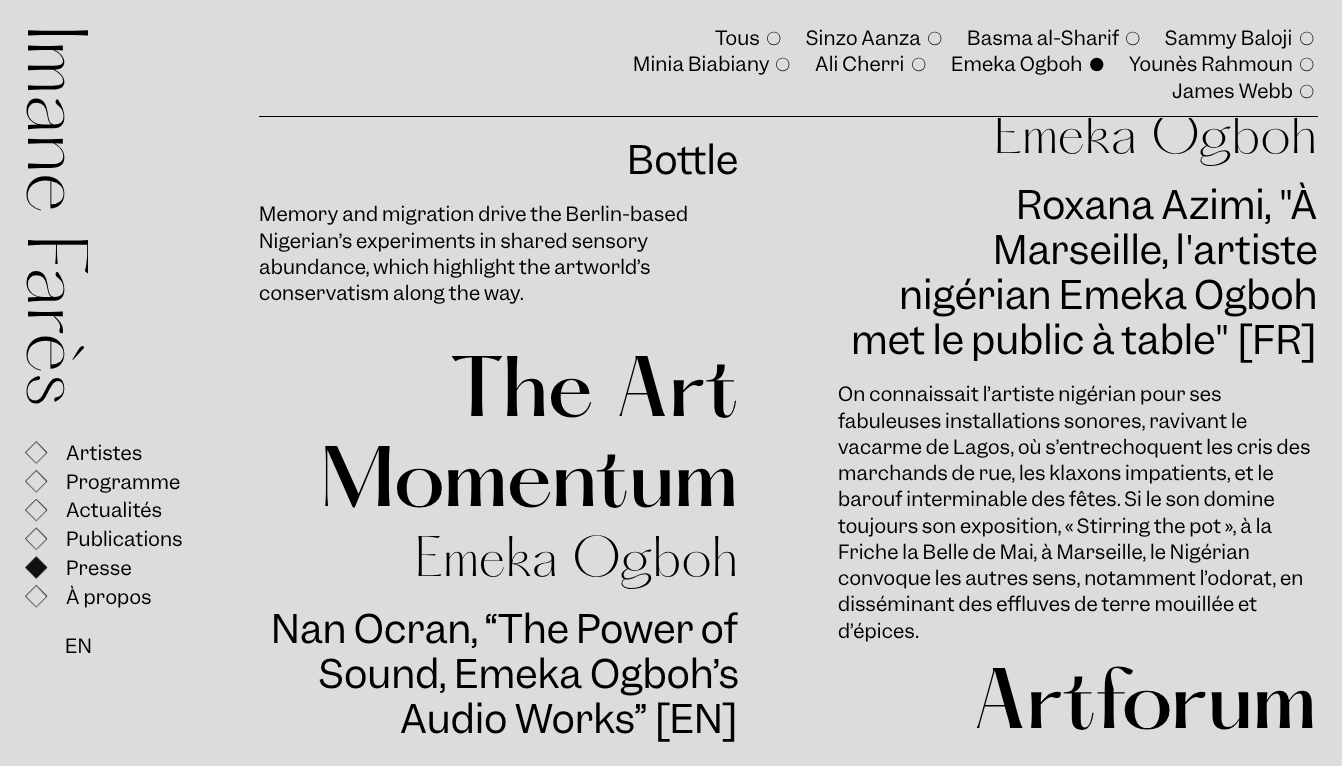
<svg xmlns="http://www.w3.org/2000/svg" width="1342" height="766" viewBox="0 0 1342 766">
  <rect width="100%" height="100%" fill="rgb(220,220,220)"/>
  <text x="28" y="25" transform="rotate(90 28 25)" font-family="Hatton" font-size="75" font-weight="300" fill="rgb(0,0,0)">Imane Farès</text>
  <image x="25" y="441" width="23" height="24" href="pic1.png"/>
  <text x="66" y="460" font-family="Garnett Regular" font-size="18.75" letter-spacing="0.2" fill="rgb(0,0,0)">Artistes</text>
  <image x="25" y="470" width="23" height="23" href="pic2.png"/>
  <text x="66" y="489" font-family="Garnett Regular" font-size="18.75" letter-spacing="0.2" fill="rgb(0,0,0)">Programme</text>
  <image x="25" y="499" width="23" height="23" href="pic3.png"/>
  <text x="66" y="517" font-family="Garnett Regular" font-size="18.75" letter-spacing="0.2" fill="rgb(0,0,0)">Actualités</text>
  <image x="25" y="527" width="23" height="24" href="pic4.png"/>
  <text x="66" y="546" font-family="Garnett Regular" font-size="18.75" letter-spacing="0.2" fill="rgb(0,0,0)">Publications</text>
  <image x="25" y="556" width="23" height="24" href="pic5.png"/>
  <text x="66" y="575" font-family="Garnett Regular" font-size="18.75" letter-spacing="0.2" fill="rgb(0,0,0)">Presse</text>
  <image x="25" y="585" width="23" height="23" href="pic2.png"/>
  <g font-family="Garnett Regular" font-size="18.75" letter-spacing="0.2" fill="rgb(0,0,0)">
    <text x="66" y="604">À propos</text>
    <text x="65" y="653">EN</text>
  </g>
  <text x="994" y="153" font-family="Hatton" font-size="50" font-weight="300" fill="rgb(0,0,0)">Emeka Ogboh</text>
  <rect x="997" y="112" width="301" height="6" fill="rgb(220,220,220)"/>
  <rect x="259" y="116" width="1059" height="1" fill="rgb(0,0,0)"/>
  <text x="715" y="45" font-family="Garnett Regular" font-size="18.75" letter-spacing="0.2" fill="rgb(0,0,0)">Tous</text>
  <text x="766" y="45" font-family="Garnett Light" font-size="18.75" font-weight="300" letter-spacing="0.2" fill="rgb(0,0,0)">○</text>
  <text x="806" y="45" font-family="Garnett Regular" font-size="18.75" letter-spacing="0.2" fill="rgb(0,0,0)">Sinzo Aanza</text>
  <text x="927" y="45" font-family="Garnett Light" font-size="18.75" font-weight="300" letter-spacing="0.2" fill="rgb(0,0,0)">○</text>
  <text x="967" y="45" font-family="Garnett Regular" font-size="18.75" letter-spacing="0.2" fill="rgb(0,0,0)">Basma al-Sharif</text>
  <text x="1125" y="45" font-family="Garnett Light" font-size="18.75" font-weight="300" letter-spacing="0.2" fill="rgb(0,0,0)">○</text>
  <text x="1165" y="45" font-family="Garnett Regular" font-size="18.75" letter-spacing="0.2" fill="rgb(0,0,0)">Sammy Baloji</text>
  <text x="1299" y="45" font-family="Garnett Light" font-size="18.75" font-weight="300" letter-spacing="0.2" fill="rgb(0,0,0)">○</text>
  <text x="633" y="71" font-family="Garnett Regular" font-size="18.75" letter-spacing="0.2" fill="rgb(0,0,0)">Minia Biabiany</text>
  <text x="775" y="71" font-family="Garnett Light" font-size="18.75" font-weight="300" letter-spacing="0.2" fill="rgb(0,0,0)">○</text>
  <text x="815" y="71" font-family="Garnett Regular" font-size="18.75" letter-spacing="0.2" fill="rgb(0,0,0)">Ali Cherri</text>
  <text x="911" y="71" font-family="Garnett Light" font-size="18.75" font-weight="300" letter-spacing="0.2" fill="rgb(0,0,0)">○</text>
  <text x="951" y="71" font-family="Garnett Regular" font-size="18.75" letter-spacing="0.2" fill="rgb(0,0,0)">Emeka Ogboh</text>
  <text x="1089" y="71" font-family="Garnett Light" font-size="18.75" font-weight="300" letter-spacing="0.2" fill="rgb(0,0,0)">●</text>
  <text x="1129" y="71" font-family="Garnett Regular" font-size="18.75" letter-spacing="0.2" fill="rgb(0,0,0)">Younès Rahmoun</text>
  <text x="1299" y="71" font-family="Garnett Light" font-size="18.75" font-weight="300" letter-spacing="0.2" fill="rgb(0,0,0)">○</text>
  <text x="1172" y="98" font-family="Garnett Regular" font-size="18.75" letter-spacing="0.2" fill="rgb(0,0,0)">James Webb</text>
  <text x="1299" y="98" font-family="Garnett Light" font-size="18.75" font-weight="300" letter-spacing="0.2" fill="rgb(0,0,0)">○</text>
  <text x="627" y="174" font-family="Garnett Regular" font-size="37.5" fill="rgb(0,0,0)">Bottle</text>
  <g font-family="Garnett Regular" font-size="18.75" letter-spacing="0.2" fill="rgb(0,0,0)">
    <text>
      <tspan x="259" y="221">Memory and migration drive the Berlin-based</tspan>
      <tspan x="259" y="248">Nigerian’s experiments in shared sensory</tspan>
      <tspan x="259" y="274">abundance, which highlight the artworld’s</tspan>
      <tspan x="259" y="300">conservatism along the way.</tspan>
    </text>
  </g>
  <g font-family="Garnett Regular" font-size="37.5" fill="rgb(0,0,0)">
    <text x="1016" y="219">Roxana Azimi, "À</text>
    <text x="993" y="264">Marseille, l'artiste</text>
    <text x="899" y="309">nigérian Emeka Ogboh</text>
    <text x="851" y="354">met le public à table" [FR]</text>
  </g>
  <g font-family="Garnett Regular" font-size="18.75" letter-spacing="0.2" fill="rgb(0,0,0)">
    <text>
      <tspan x="838" y="401">On connaissait l’artiste nigérian pour ses</tspan>
      <tspan x="838" y="428">fabuleuses installations sonores, ravivant le</tspan>
      <tspan x="838" y="454">vacarme de Lagos, où s’entrechoquent les cris des</tspan>
      <tspan x="838" y="480">marchands de rue, les klaxons impatients, et le</tspan>
      <tspan x="838" y="506">barouf interminable des fêtes. Si le son domine</tspan>
      <tspan x="838" y="533">toujours son exposition, « Stirring the pot », à la</tspan>
      <tspan x="838" y="559">Friche la Belle de Mai, à Marseille, le Nigérian</tspan>
      <tspan x="838" y="585">convoque les autres sens, notamment l’odorat, en</tspan>
      <tspan x="838" y="611">disséminant des effluves de terre mouillée et</tspan>
      <tspan x="838" y="638">d’épices.</tspan>
    </text>
  </g>
  <g font-family="Hatton" font-size="75" font-weight="500" fill="rgb(0,0,0)">
    <text x="450" y="416">The Art</text>
    <text x="320" y="506">Momentum</text>
  </g>
  <text x="415" y="576" font-family="Hatton" font-size="50" font-weight="300" fill="rgb(0,0,0)">Emeka Ogboh</text>
  <g font-family="Garnett Regular" font-size="37.5" fill="rgb(0,0,0)">
    <text x="271" y="643">Nan Ocran, “The Power of</text>
    <text x="319" y="688" word-spacing="1">Sound, Emeka Ogboh’s</text>
    <text x="400" y="733">Audio Works” [EN]</text>
  </g>
  <text x="973" y="728" font-family="Hatton" font-size="75" font-weight="500" fill="rgb(0,0,0)">Artforum</text>
</svg>
